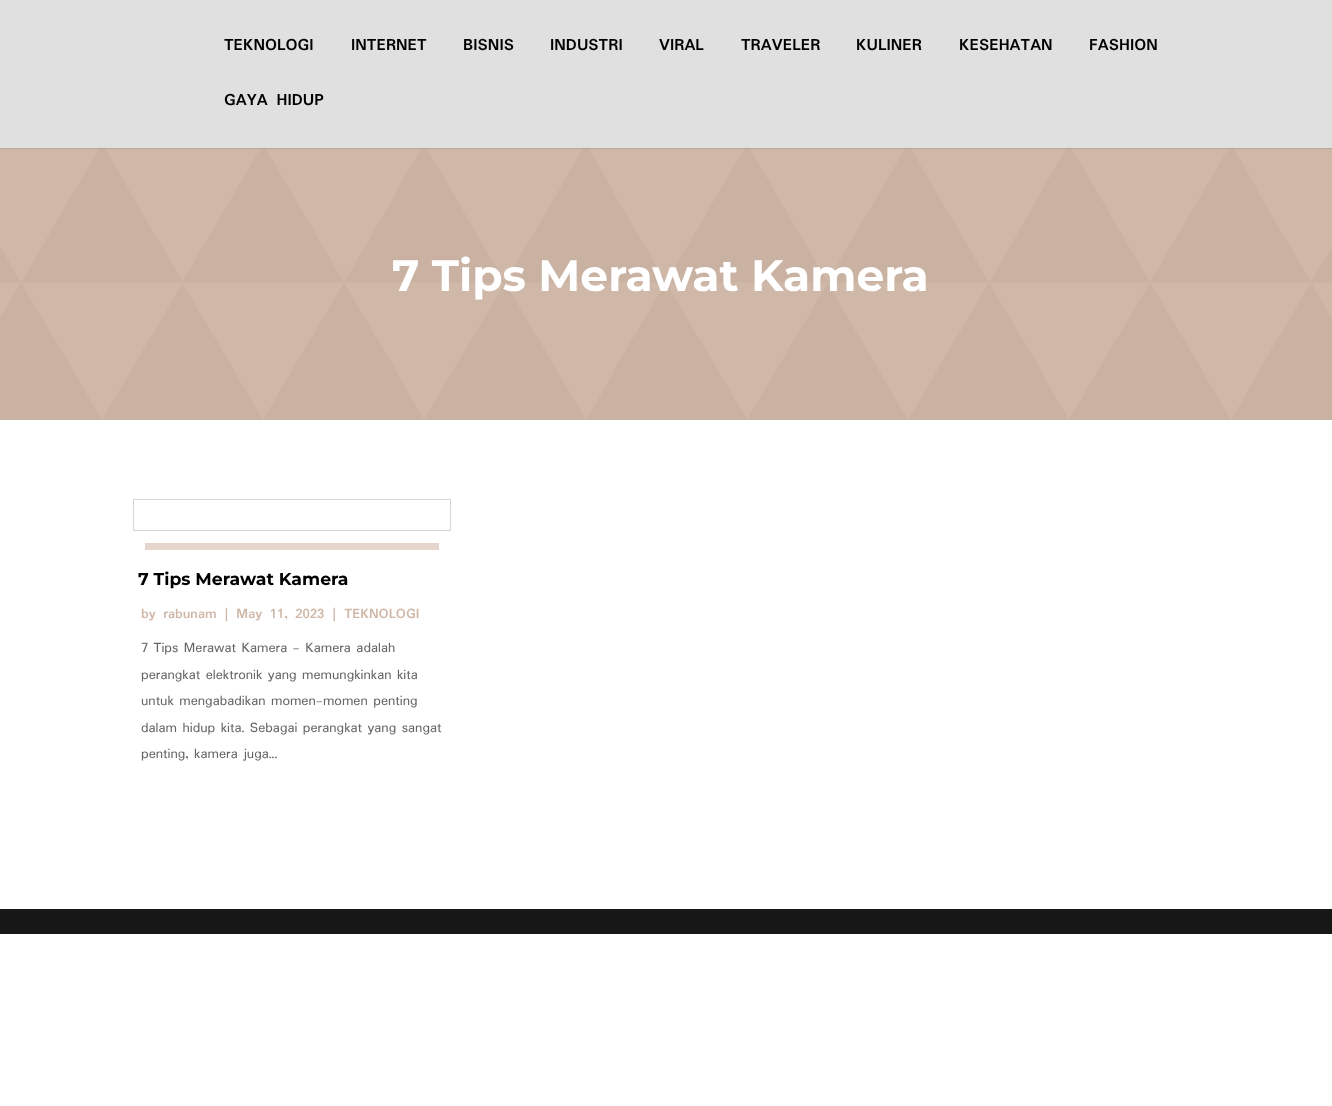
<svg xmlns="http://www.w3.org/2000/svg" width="1332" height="1106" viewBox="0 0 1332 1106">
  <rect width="100%" height="100%" fill="rgb(255,255,255)"/>
  <rect x="0" y="148" width="1332" height="272" fill="rgb(208,184,168)"/>
  <image x="0" y="148" width="1332" height="272" href="pic1.png"/>
  <path d="M0 148V149H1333V1H1332V148Z" fill="rgba(0,0,0,0.1)"/>
  <rect x="0" y="0" width="1332" height="148" fill="rgb(224,224,224)"/>
  <g font-family="Padauk" font-size="17.5" font-weight="bold" fill="rgb(0,0,0)">
    <text x="224" y="50">TEKNOLOGI</text>
    <text x="351" y="50">INTERNET</text>
    <text x="463" y="50">BISNIS</text>
    <text x="550" y="50">INDUSTRI</text>
    <text x="659" y="50">VIRAL</text>
    <text x="741" y="50">TRAVELER</text>
    <text x="856" y="50">KULINER</text>
    <text x="959" y="50">KESEHATAN</text>
    <text x="1089" y="50">FASHION</text>
    <text x="224" y="105">GAYA HIDUP</text>
  </g>
  <text x="392" y="291" font-family="Montserrat" font-size="44" font-weight="bold" fill="rgb(255,255,255)">7 Tips Merawat Kamera</text>
  <rect x="145" y="543" width="294" height="7" fill="rgb(228,214,205)"/>
  <rect x="133.5" y="499.5" width="317" height="31" fill="none" stroke="rgb(214,214,214)"/>
  <text x="138" y="585" font-family="Montserrat" font-size="17.25" font-weight="bold" fill="rgb(0,0,0)">7 Tips Merawat Kamera</text>
  <text x="141" y="618" font-family="Padauk" font-size="14.7" font-weight="bold" fill="rgb(208,184,168)">by rabunam | May 11, 2023 | TEKNOLOGI</text>
  <g font-family="Padauk" font-size="14.7" fill="rgb(102,102,102)">
    <text>
      <tspan x="141" y="652">7 Tips Merawat Kamera - Kamera adalah</tspan>
      <tspan x="141" y="679">perangkat elektronik yang memungkinkan kita</tspan>
      <tspan x="141" y="705">untuk mengabadikan momen-momen penting</tspan>
      <tspan x="141" y="732">dalam hidup kita. Sebagai perangkat yang sangat</tspan>
      <tspan x="141" y="758">penting, kamera juga...</tspan>
    </text>
  </g>
  <rect x="0" y="909" width="1332" height="25" fill="rgb(23,23,23)"/>
</svg>
